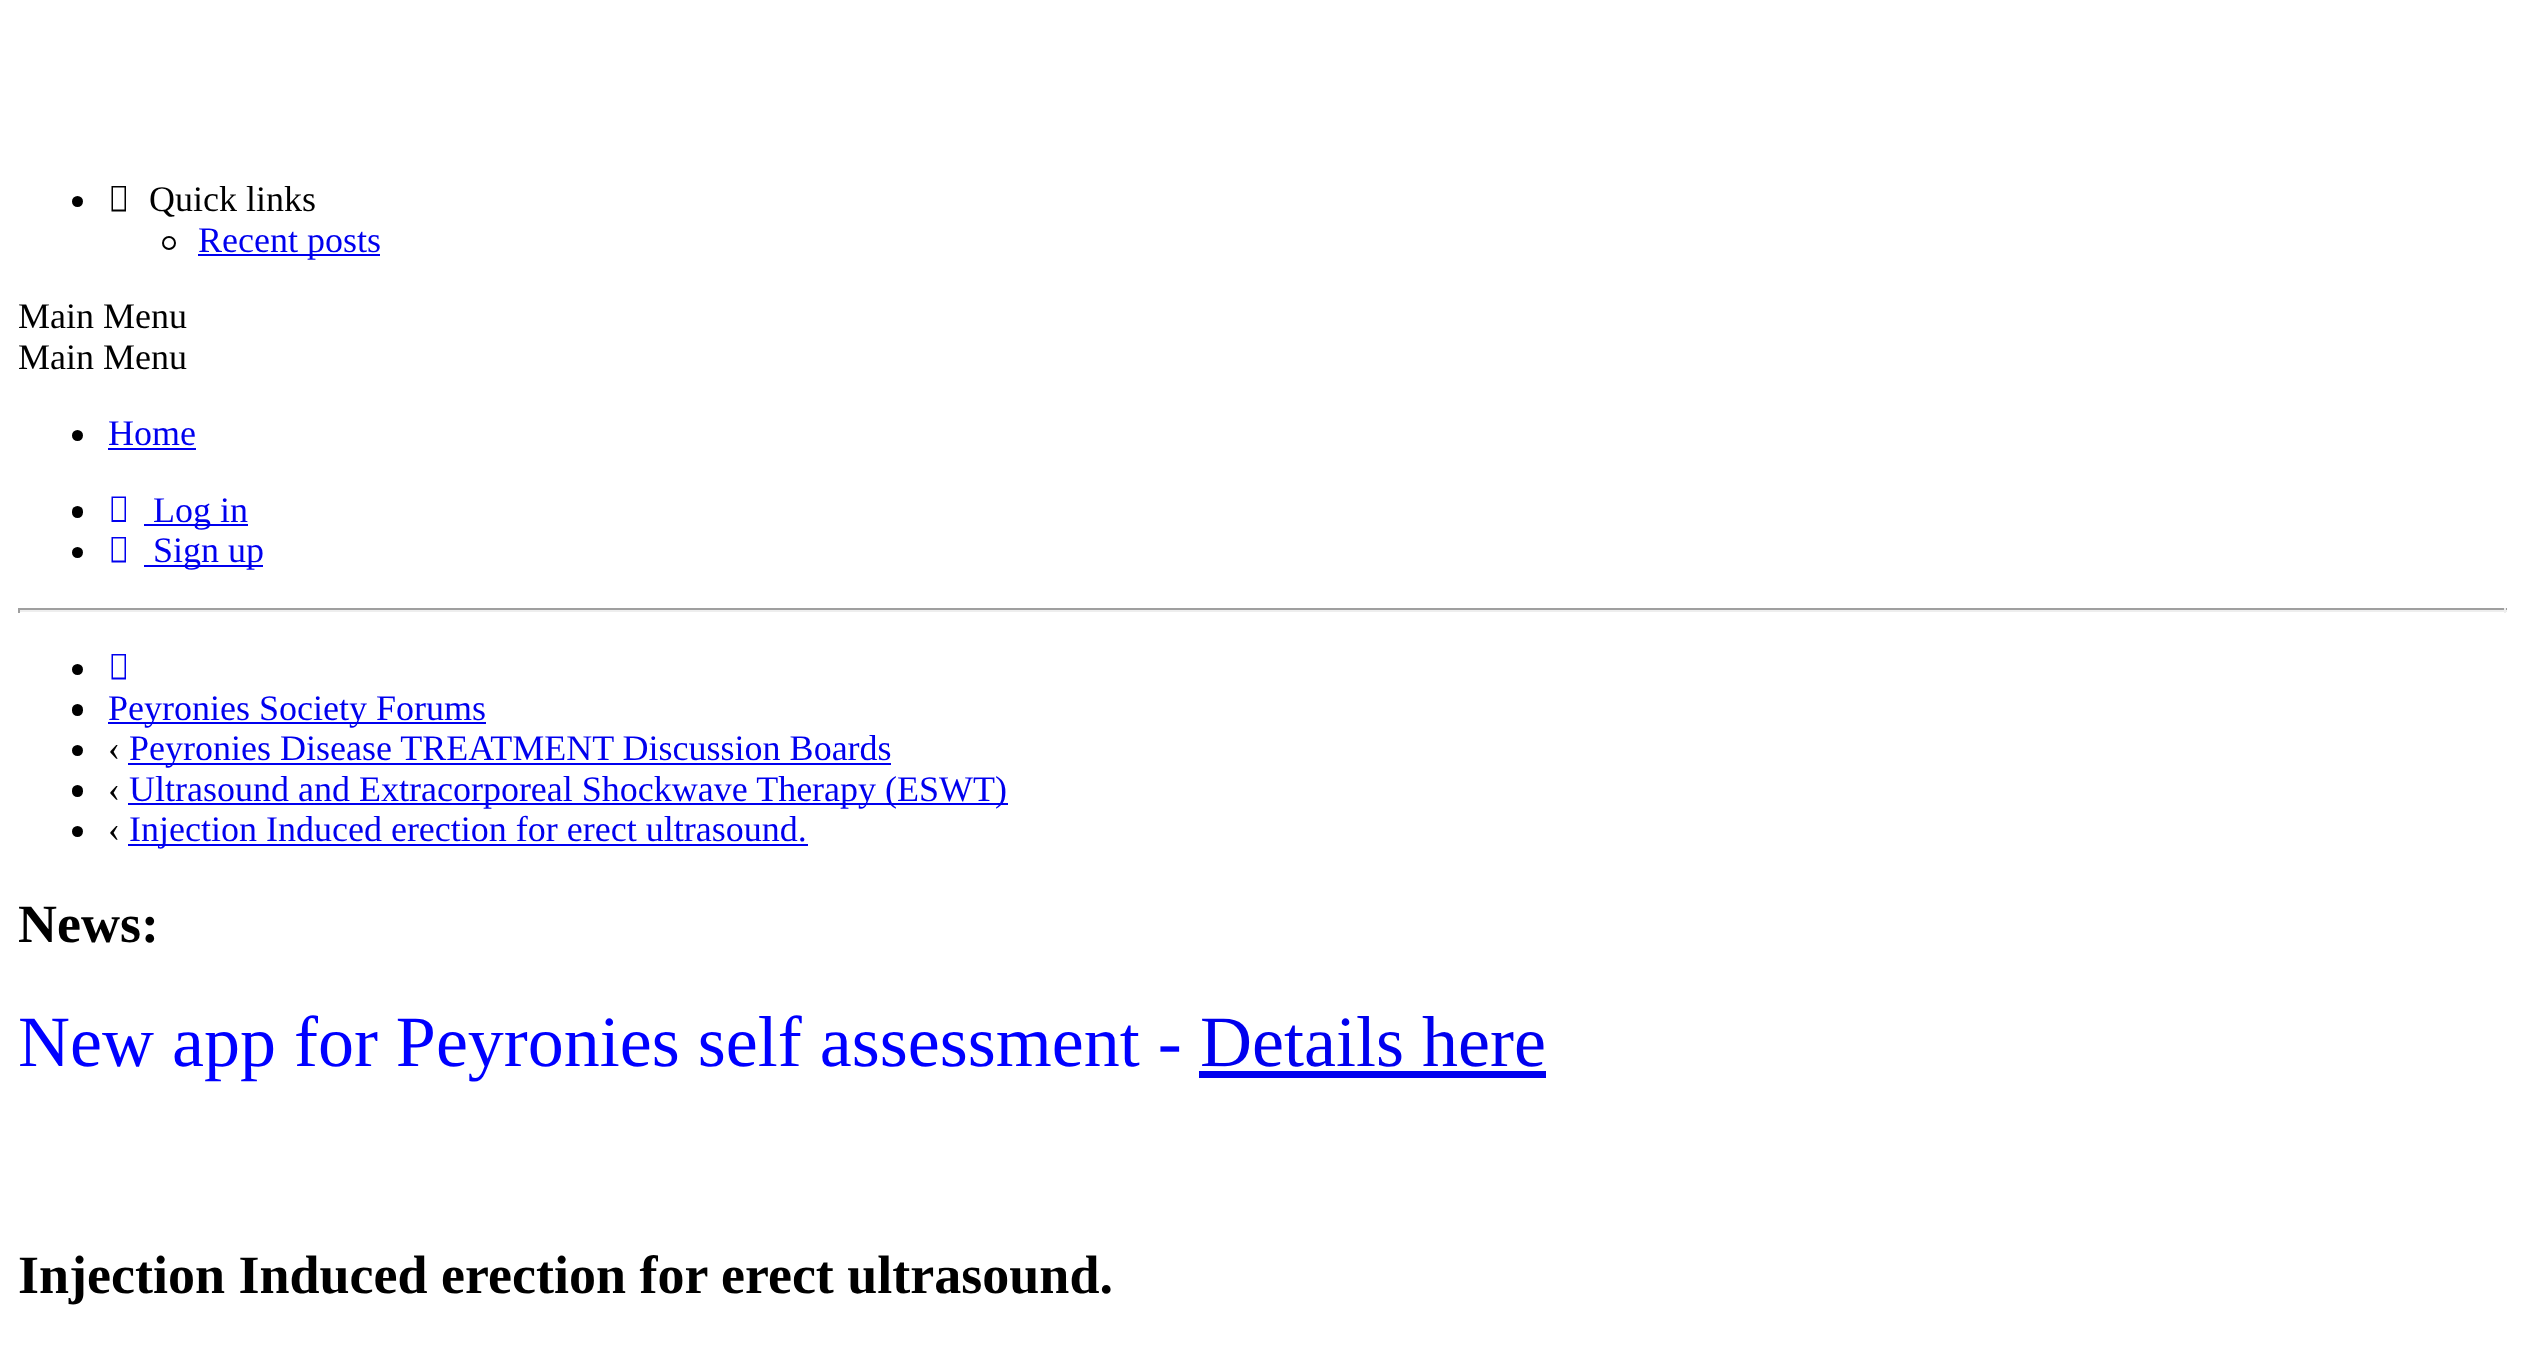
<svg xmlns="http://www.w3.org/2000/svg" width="2523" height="1372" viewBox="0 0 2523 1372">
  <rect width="100%" height="100%" fill="rgb(255,255,255)"/>
  <circle cx="77.5" cy="201.5" r="5.5" fill="rgb(0,0,0)"/>
  <path d="M111.5 211.5V186H126V211.5ZM113 209.5H124.5V187.5H113Z" fill="rgb(0,0,0)"/>
  <text x="149" y="211" font-family="Liberation Serif" font-size="36" fill="rgb(0,0,0)">Quick links</text>
  <circle cx="169" cy="243" r="6" fill="none" stroke="rgb(0,0,0)" stroke-width="2"/>
  <rect x="198" y="254" width="182" height="2" fill="rgb(0,0,238)"/>
  <text x="198" y="252" font-family="Liberation Serif" font-size="36" fill="rgb(0,0,238)">Recent posts</text>
  <g font-family="Liberation Serif" font-size="36" fill="rgb(0,0,0)">
    <text>
      <tspan x="18" y="328">Main Menu</tspan>
      <tspan x="18" y="369">Main Menu</tspan>
    </text>
  </g>
  <circle cx="77.5" cy="435.5" r="5.5" fill="rgb(0,0,0)"/>
  <text x="108" y="445" font-family="Liberation Serif" font-size="36" fill="rgb(0,0,238)">Home</text>
  <rect x="108" y="448" width="88" height="2" fill="rgb(0,0,238)"/>
  <rect x="72" y="506" width="11" height="12" rx="5.5" fill="rgb(0,0,0)"/>
  <path d="M111.5 522V496.5H126V522ZM113 520H124.5V498H113Z" fill="rgb(0,0,238)"/>
  <rect x="144" y="524" width="104" height="2" fill="rgb(0,0,238)"/>
  <text x="153" y="522" font-family="Liberation Serif" font-size="36" fill="rgb(0,0,238)">Log in</text>
  <circle cx="77.5" cy="552.5" r="5.5" fill="rgb(0,0,0)"/>
  <path d="M111.5 562.5V537H126V562.5ZM113 560.5H124.5V538.5H113Z" fill="rgb(0,0,238)"/>
  <rect x="144" y="565" width="119" height="2" fill="rgb(0,0,238)"/>
  <text x="153" y="562" font-family="Liberation Serif" font-size="36" fill="rgb(0,0,238)">Sign up</text>
  <rect x="18" y="608" width="2489" height="2" fill="rgb(159,159,159)"/>
  <rect x="2504" y="608" width="2" height="5" fill="rgb(238,238,238)"/>
  <rect x="18" y="610" width="2489" height="2" fill="rgb(238,238,238)"/>
  <rect x="18" y="608" width="2" height="5" fill="rgb(159,159,159)"/>
  <circle cx="77.5" cy="669.5" r="5.5" fill="rgb(0,0,0)"/>
  <path d="M111.5 679.5V654H126V679.5ZM113 677.5H124.5V655.5H113Z" fill="rgb(0,0,238)"/>
  <rect x="72" y="704" width="11" height="12" rx="5.5" fill="rgb(0,0,0)"/>
  <rect x="108" y="722" width="378" height="2" fill="rgb(0,0,238)"/>
  <text x="108" y="720" font-family="Liberation Serif" font-size="36" fill="rgb(0,0,238)">Peyronies Society Forums</text>
  <circle cx="77.5" cy="750.5" r="5.5" fill="rgb(0,0,0)"/>
  <text x="108" y="760" font-family="Liberation Serif" font-size="36" fill="rgb(0,0,0)">‹</text>
  <rect x="128" y="763" width="763" height="2" fill="rgb(0,0,238)"/>
  <text x="129" y="760" font-family="Liberation Serif" font-size="36" fill="rgb(0,0,238)">Peyronies Disease TREATMENT Discussion Boards</text>
  <rect x="72" y="785" width="11" height="12" rx="5.5" fill="rgb(0,0,0)"/>
  <text x="108" y="801" font-family="Liberation Serif" font-size="36" fill="rgb(0,0,0)">‹</text>
  <rect x="128" y="803" width="880" height="2" fill="rgb(0,0,238)"/>
  <text x="129" y="801" font-family="Liberation Serif" font-size="36" fill="rgb(0,0,238)">Ultrasound and Extracorporeal Shockwave Therapy (ESWT)</text>
  <circle cx="77.5" cy="831.5" r="5.5" fill="rgb(0,0,0)"/>
  <text x="108" y="841" font-family="Liberation Serif" font-size="36" fill="rgb(0,0,0)">‹</text>
  <rect x="128" y="844" width="680" height="2" fill="rgb(0,0,238)"/>
  <text x="129" y="841" font-family="Liberation Serif" font-size="36" fill="rgb(0,0,238)">Injection Induced erection for erect ultrasound.</text>
  <text x="18" y="942" font-family="Liberation Serif" font-size="54" font-weight="bold" fill="rgb(0,0,0)">News:</text>
  <text x="18" y="1066" font-family="Liberation Serif" font-size="72" fill="rgb(0,0,255)">New app for Peyronies self assessment -</text>
  <text x="1200" y="1066" font-family="Liberation Serif" font-size="72" fill="rgb(0,0,238)">Details here</text>
  <rect x="1199" y="1071" width="347" height="7" fill="rgb(0,0,238)"/>
  <text x="18" y="1293" font-family="Liberation Serif" font-size="54" font-weight="bold" fill="rgb(0,0,0)">Injection Induced erection for erect ultrasound.</text>
</svg>
